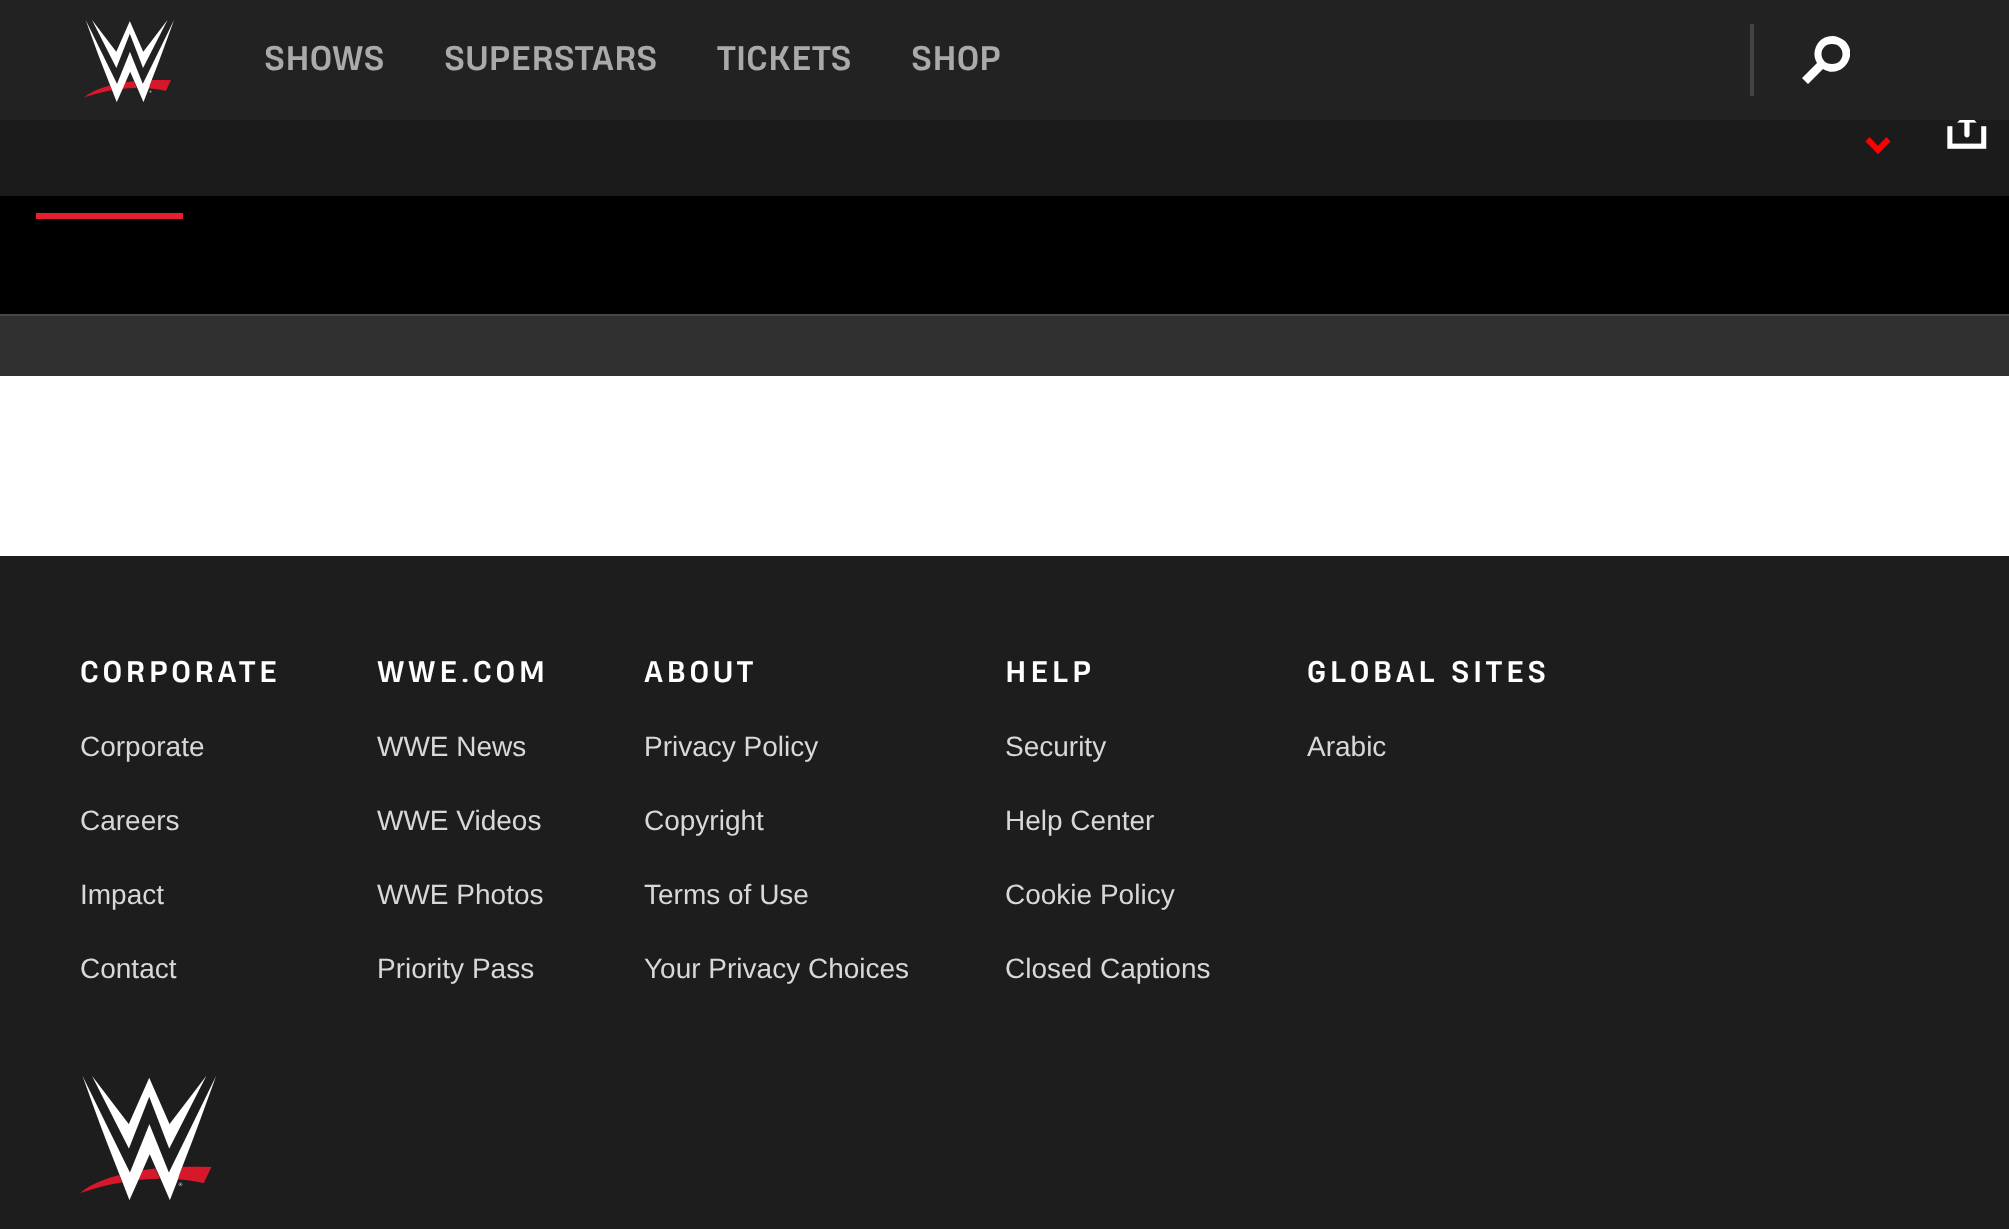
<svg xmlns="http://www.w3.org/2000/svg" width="2009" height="1229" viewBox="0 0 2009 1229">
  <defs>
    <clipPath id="clip1"><rect x="1802" y="36" width="48" height="48"/></clipPath>
  </defs>
  <rect width="100%" height="100%" fill="rgb(255,255,255)"/>
  <rect x="0" y="0" width="2009" height="120" fill="rgb(34,34,34)"/>
  <image x="84" y="20" width="90" height="82" href="pic1.png"/>
  <g font-family="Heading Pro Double" font-size="32" font-weight="bold" fill="rgb(170,170,170)">
    <text x="264" y="70">SHOWS</text>
    <text x="444" y="70">SUPERSTARS</text>
    <text x="717" y="70">TICKETS</text>
    <text x="911" y="70">SHOP</text>
  </g>
  <rect x="1750" y="24" width="4" height="72" fill="rgb(68,68,68)"/>
  <g clip-path="url(#clip1)">
    <path d="M1832 36C1837 36 1841 38 1845 41C1860 56 1840 80 1823 69L1808 84L1802 78L1817 63C1810 52 1818 36 1832 36ZM1832 44C1818 44 1818 64 1832 64C1846 64 1846 44 1832 44Z" fill="rgb(255,255,255)" fill-rule="evenodd"/>
  </g>
  <rect x="0" y="316" width="2009" height="60" fill="rgb(48,48,48)"/>
  <rect x="0" y="120" width="2009" height="76" fill="rgb(27,27,27)"/>
  <path d="M1886.5 137L1890.5 141.5L1878 154L1874 150Z" fill="rgb(255,0,0)"/>
  <path d="M1869.5 137L1882 150L1878 154L1865.5 141.5Z" fill="rgb(255,0,0)"/>
  <image x="1947" y="120" width="40" height="29" href="pic2.png"/>
  <rect x="0" y="196" width="2009" height="118" fill="rgb(0,0,0)"/>
  <rect x="0" y="314" width="2009" height="2" fill="rgb(71,71,71)"/>
  <rect x="36" y="213" width="147" height="6" fill="rgb(231,32,47)"/>
  <rect x="0" y="556" width="2009" height="673" fill="rgb(29,29,29)"/>
  <text x="80" y="682" font-family="Heading Pro Double" font-size="28" font-weight="bold" letter-spacing="3.5" fill="rgb(255,255,255)">CORPORATE</text>
  <g font-family="Liberation Sans" font-size="28" fill="rgb(216,216,216)">
    <text x="80" y="756">Corporate</text>
    <text x="80" y="830">Careers</text>
    <text x="80" y="904">Impact</text>
    <text x="80" y="978">Contact</text>
  </g>
  <text x="377" y="682" font-family="Heading Pro Double" font-size="28" font-weight="bold" letter-spacing="3.5" fill="rgb(255,255,255)">WWE.COM</text>
  <g font-family="Liberation Sans" font-size="28" fill="rgb(216,216,216)">
    <text x="377" y="756">WWE News</text>
    <text x="377" y="830">WWE Videos</text>
    <text x="377" y="904">WWE Photos</text>
    <text x="377" y="978">Priority Pass</text>
  </g>
  <text x="644" y="682" font-family="Heading Pro Double" font-size="28" font-weight="bold" letter-spacing="3.5" fill="rgb(255,255,255)">ABOUT</text>
  <g font-family="Liberation Sans" font-size="28" fill="rgb(216,216,216)">
    <text x="644" y="756">Privacy Policy</text>
    <text x="644" y="830">Copyright</text>
    <text x="644" y="904">Terms of Use</text>
    <text x="644" y="978">Your Privacy Choices</text>
  </g>
  <text x="1005" y="682" font-family="Heading Pro Double" font-size="28" font-weight="bold" letter-spacing="3.5" fill="rgb(255,255,255)">HELP</text>
  <g font-family="Liberation Sans" font-size="28" fill="rgb(216,216,216)">
    <text x="1005" y="756">Security</text>
    <text x="1005" y="830">Help Center</text>
    <text x="1005" y="904">Cookie Policy</text>
    <text x="1005" y="978">Closed Captions</text>
  </g>
  <text x="1307" y="682" font-family="Heading Pro Double" font-size="28" font-weight="bold" letter-spacing="3.5" fill="rgb(255,255,255)">GLOBAL SITES</text>
  <text x="1307" y="756" font-family="Liberation Sans" font-size="28" fill="rgb(216,216,216)">Arabic</text>
  <image x="80" y="1076" width="136" height="124" href="pic3.png"/>
</svg>
